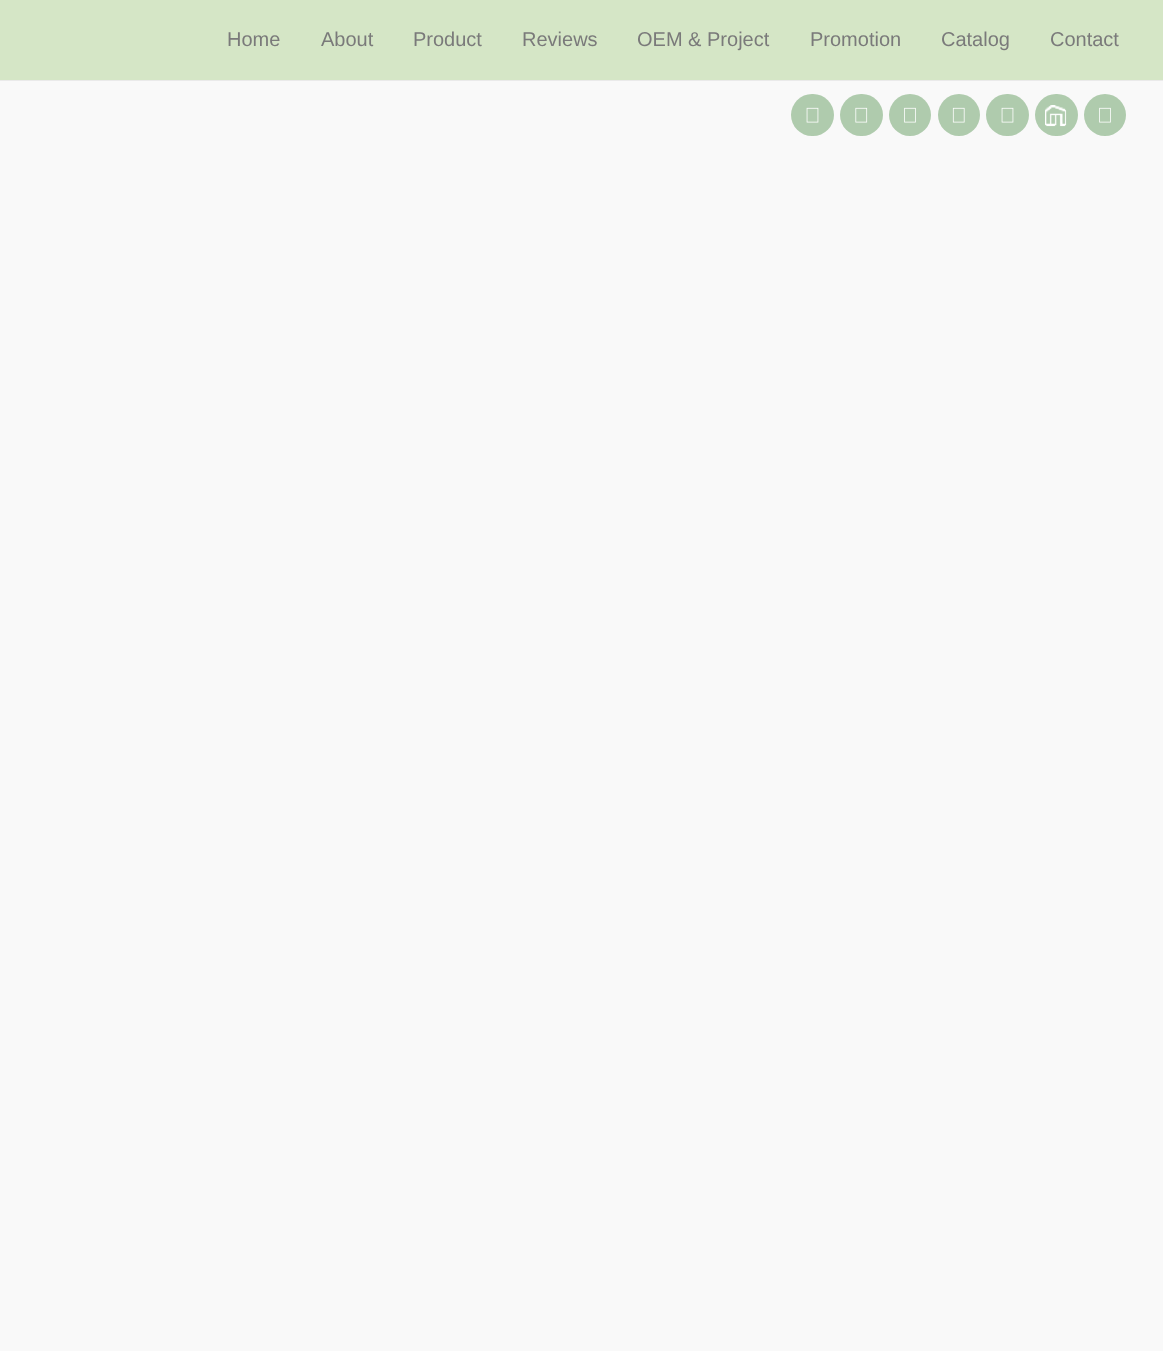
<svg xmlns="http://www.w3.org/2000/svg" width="1163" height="1351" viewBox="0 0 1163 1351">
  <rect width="100%" height="100%" fill="rgb(249,249,249)"/>
  <rect x="0" y="0" width="1163" height="80" fill="rgb(213,230,198)"/>
  <rect x="0" y="80" width="1163" height="1" fill="rgb(234,234,234)"/>
  <g font-family="Liberation Sans" font-size="20" fill="rgb(122,122,122)">
    <text x="227" y="46">Home</text>
    <text x="321" y="46">About</text>
    <text x="413" y="46">Product</text>
    <text x="522" y="46">Reviews</text>
    <text x="637" y="46">OEM &amp; Project</text>
    <text x="810" y="46">Promotion</text>
    <text x="941" y="46">Catalog</text>
    <text x="1050" y="46">Contact</text>
  </g>
  <rect x="791" y="94" width="43" height="42" rx="21" fill="rgb(175,203,173)"/>
  <image x="806" y="107" width="13" height="16" href="pic1.png"/>
  <rect x="840" y="94" width="43" height="42" rx="21" fill="rgb(175,203,173)"/>
  <image x="855" y="107" width="13" height="16" href="pic2.png"/>
  <circle cx="910" cy="115" r="21" fill="rgb(175,203,173)"/>
  <image x="904" y="107" width="12" height="16" href="pic3.png"/>
  <circle cx="959" cy="115" r="21" fill="rgb(175,203,173)"/>
  <image x="952" y="107" width="13" height="16" href="pic4.png"/>
  <rect x="986" y="94" width="43" height="42" rx="21" fill="rgb(175,203,173)"/>
  <image x="1001" y="107" width="13" height="16" href="pic1.png"/>
  <rect x="1035" y="94" width="43" height="42" rx="21" fill="rgb(175,203,173)"/>
  <image x="1045" y="105" width="22" height="22" href="pic5.png"/>
  <circle cx="1105" cy="115" r="21" fill="rgb(175,203,173)"/>
  <image x="1099" y="107" width="12" height="16" href="pic3.png"/>
</svg>
